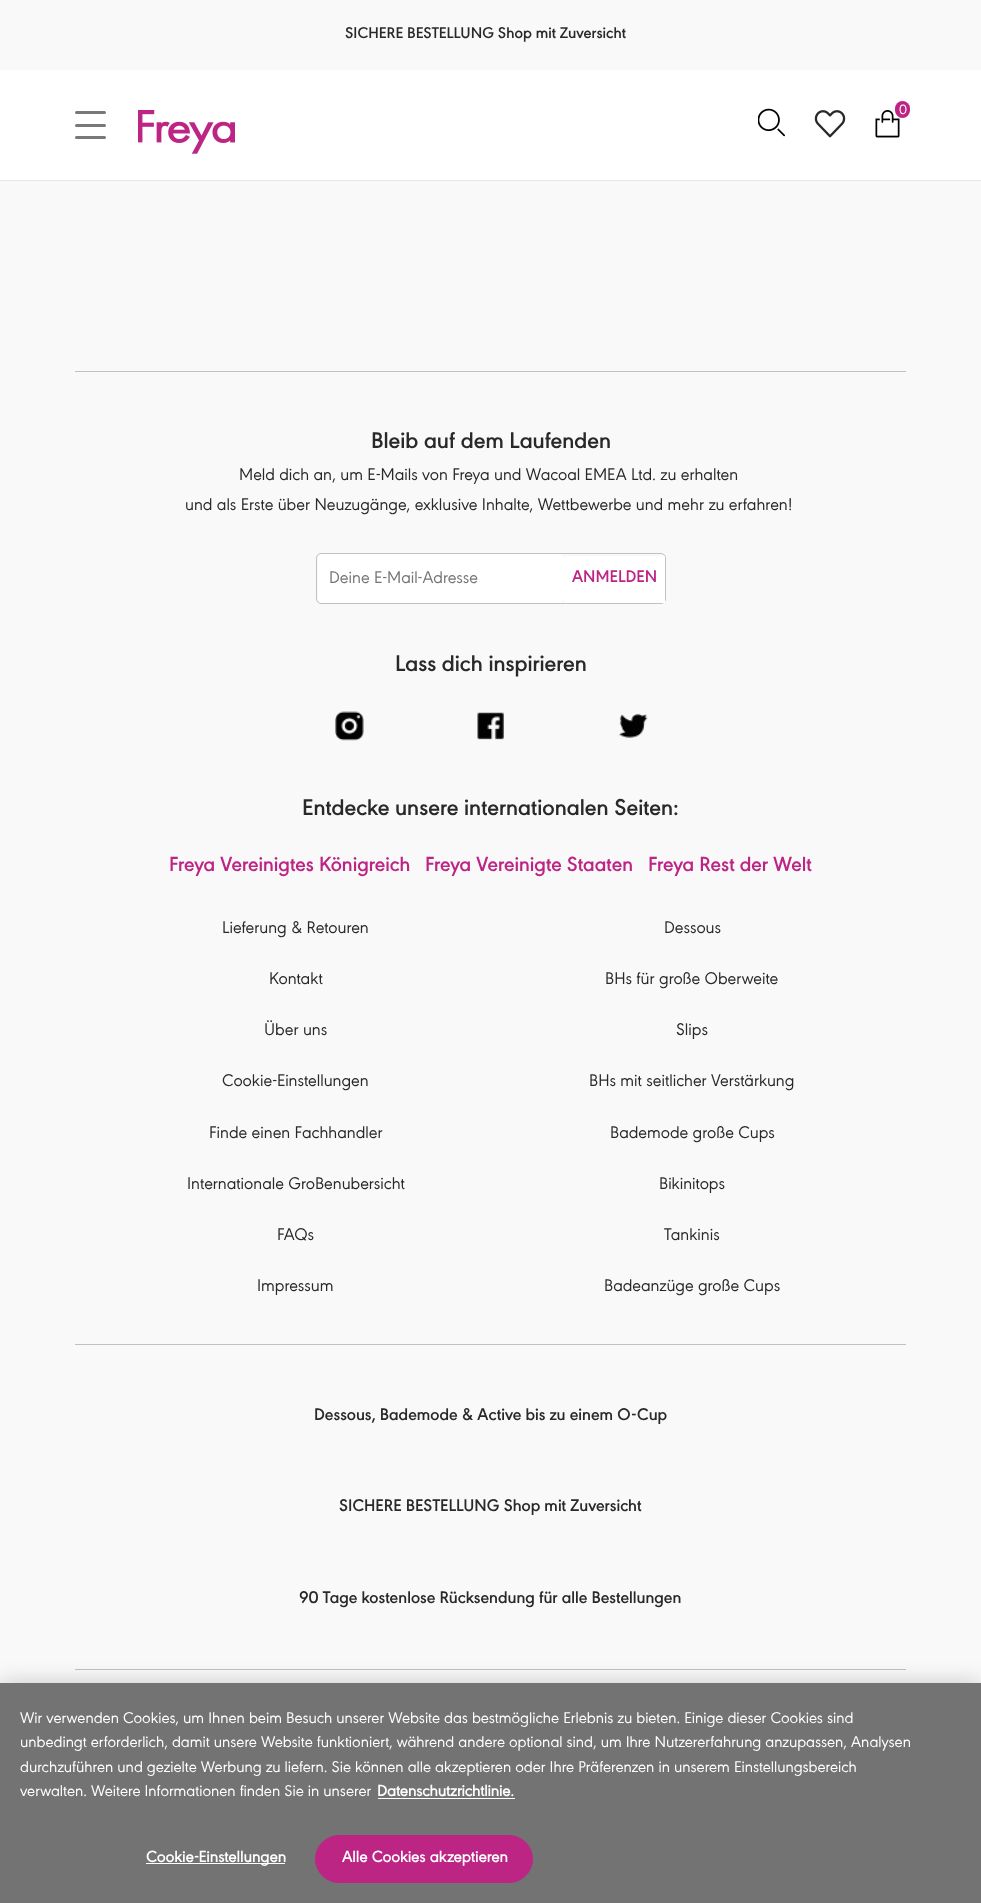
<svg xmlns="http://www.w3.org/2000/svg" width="981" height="1903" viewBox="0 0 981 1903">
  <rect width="100%" height="100%" fill="rgb(249,249,249)"/>
  <text x="345" y="38" font-family="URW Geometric" font-size="16.25" font-weight="600" fill="rgb(41,41,41)">SICHERE BESTELLUNG Shop mit Zuversicht</text>
  <rect x="0" y="180" width="981" height="1" fill="rgb(232,232,232)"/>
  <rect x="0" y="70" width="981" height="110" fill="rgb(255,255,255)"/>
  <rect x="75" y="124" width="31" height="3" rx="1.5" fill="rgb(120,120,120)"/>
  <rect x="75" y="111" width="31" height="3" rx="1.5" fill="rgb(120,120,120)"/>
  <rect x="75" y="136" width="31" height="3" rx="1.5" fill="rgb(120,120,120)"/>
  <image x="138" y="110" width="97" height="44" href="pic1.png"/>
  <image x="758" y="108" width="27" height="29" href="pic2.png"/>
  <image x="814" y="110" width="32" height="28" href="pic3.png"/>
  <image x="875" y="110" width="25" height="28" href="pic4.png"/>
  <rect x="895" y="101" width="15" height="17" rx="7.5" fill="rgb(189,37,133)"/>
  <text x="899" y="114" font-family="URW Geometric" font-size="14" fill="rgb(255,255,255)">0</text>
  <rect x="75" y="371" width="831" height="1" fill="rgb(193,193,194)"/>
  <text x="371" y="448" font-family="URW Geometric" font-size="23.75" font-weight="600" fill="rgb(41,41,41)">Bleib auf dem Laufenden</text>
  <g font-family="URW Geometric" font-size="17.5" fill="rgb(41,41,41)">
    <text x="239" y="480">Meld dich an, um E-Mails von Freya und Wacoal EMEA Ltd. zu erhalten</text>
    <text x="185" y="510">und als Erste über Neuzugänge, exklusive Inhalte, Wettbewerbe und mehr zu erfahren!</text>
  </g>
  <rect x="316.5" y="553.5" width="349" height="50" rx="4.5" fill="none" stroke="rgb(193,193,194)"/>
  <rect x="318" y="554" width="246" height="49" rx="5" fill="rgb(255,255,255)"/>
  <text x="329" y="583" font-family="URW Geometric" font-size="17.5" fill="rgb(117,117,117)">Deine E-Mail-Adresse</text>
  <rect x="564" y="556" width="101" height="47" fill="rgb(255,255,255)"/>
  <text x="572" y="582" font-family="URW Geometric" font-size="17.5" font-weight="600" fill="rgb(189,37,133)">ANMELDEN</text>
  <text x="395" y="671" font-family="URW Geometric" font-size="23.75" font-weight="600" fill="rgb(41,41,41)">Lass dich inspirieren</text>
  <image x="335" y="711" width="29" height="30" href="pic5.png"/>
  <image x="477" y="712" width="27" height="28" href="pic6.png"/>
  <image x="618" y="713" width="30" height="25" href="pic7.png"/>
  <text x="302" y="815" font-family="URW Geometric" font-size="23.75" font-weight="600" fill="rgb(41,41,41)">Entdecke unsere internationalen Seiten:</text>
  <g font-family="URW Geometric" font-size="21.25" font-weight="600" fill="rgb(189,37,133)">
    <text x="169" y="871">Freya Vereinigtes Königreich</text>
    <text x="425" y="871">Freya Vereinigte Staaten</text>
    <text x="648" y="871">Freya Rest der Welt</text>
  </g>
  <g font-family="URW Geometric" font-size="17.5" fill="rgb(41,41,41)">
    <text x="222" y="933">Lieferung &amp; Retouren</text>
    <text x="269" y="984">Kontakt</text>
    <text x="264" y="1035">Über uns</text>
    <text x="222" y="1086">Cookie-Einstellungen</text>
    <text x="209" y="1138">Finde einen Fachhandler</text>
    <text x="187" y="1189">Internationale GroBenubersicht</text>
    <text x="277" y="1240">FAQs</text>
    <text x="257" y="1291">Impressum</text>
    <text x="664" y="933">Dessous</text>
    <text x="605" y="984">BHs für große Oberweite</text>
    <text x="676" y="1035">Slips</text>
    <text x="589" y="1086">BHs mit seitlicher Verstärkung</text>
    <text x="610" y="1138">Bademode große Cups</text>
    <text x="659" y="1189">Bikinitops</text>
    <text x="664" y="1240">Tankinis</text>
    <text x="604" y="1291">Badeanzüge große Cups</text>
  </g>
  <rect x="75" y="1344" width="831" height="1" fill="rgb(193,193,194)"/>
  <rect x="75" y="1669" width="831" height="1" fill="rgb(193,193,194)"/>
  <g font-family="URW Geometric" font-size="17.5" font-weight="600" fill="rgb(41,41,41)">
    <text x="314" y="1420">Dessous, Bademode &amp; Active bis zu einem O-Cup</text>
    <text x="339" y="1511">SICHERE BESTELLUNG Shop mit Zuversicht</text>
    <text x="299" y="1603">90 Tage kostenlose Rücksendung für alle Bestellungen</text>
  </g>
  <rect x="0" y="1683" width="981" height="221" fill="rgba(0,0,0,0.2)" filter="blur(11px)"/>
  <rect x="0" y="1683" width="981" height="220" fill="rgb(115,115,115)"/>
  <g font-family="URW Geometric" font-size="16.25" fill="rgb(255,255,255)">
    <text>
      <tspan x="20" y="1723">Wir verwenden Cookies, um Ihnen beim Besuch unserer Website das bestmögliche Erlebnis zu bieten. Einige dieser Cookies sind</tspan>
      <tspan x="20" y="1747">unbedingt erforderlich, damit unsere Website funktioniert, während andere optional sind, um Ihre Nutzererfahrung anzupassen, Analysen</tspan>
      <tspan x="20" y="1772">durchzuführen und gezielte Werbung zu liefern. Sie können alle akzeptieren oder Ihre Präferenzen in unserem Einstellungsbereich</tspan>
      <tspan x="20" y="1796">verwalten. Weitere Informationen finden Sie in unserer</tspan>
    </text>
  </g>
  <text x="377" y="1796" font-family="URW Geometric" font-size="16.25" font-weight="bold" fill="rgb(255,255,255)">Datenschutzrichtlinie.</text>
  <rect x="378" y="1798" width="137" height="1" fill="rgb(255,255,255)"/>
  <rect x="146" y="1863" width="139" height="1" fill="rgb(255,255,255)"/>
  <text x="146" y="1862" font-family="URW Geometric" font-size="16.25" font-weight="bold" letter-spacing="0.2" fill="rgb(255,255,255)">Cookie-Einstellungen</text>
  <rect x="315.5" y="1835.5" width="217" height="47" rx="23.5" fill="rgb(189,37,133)" stroke="rgb(189,37,133)"/>
  <text x="342" y="1862" font-family="URW Geometric" font-size="16.25" font-weight="bold" letter-spacing="0.2" fill="rgb(255,255,255)">Alle Cookies akzeptieren</text>
</svg>
